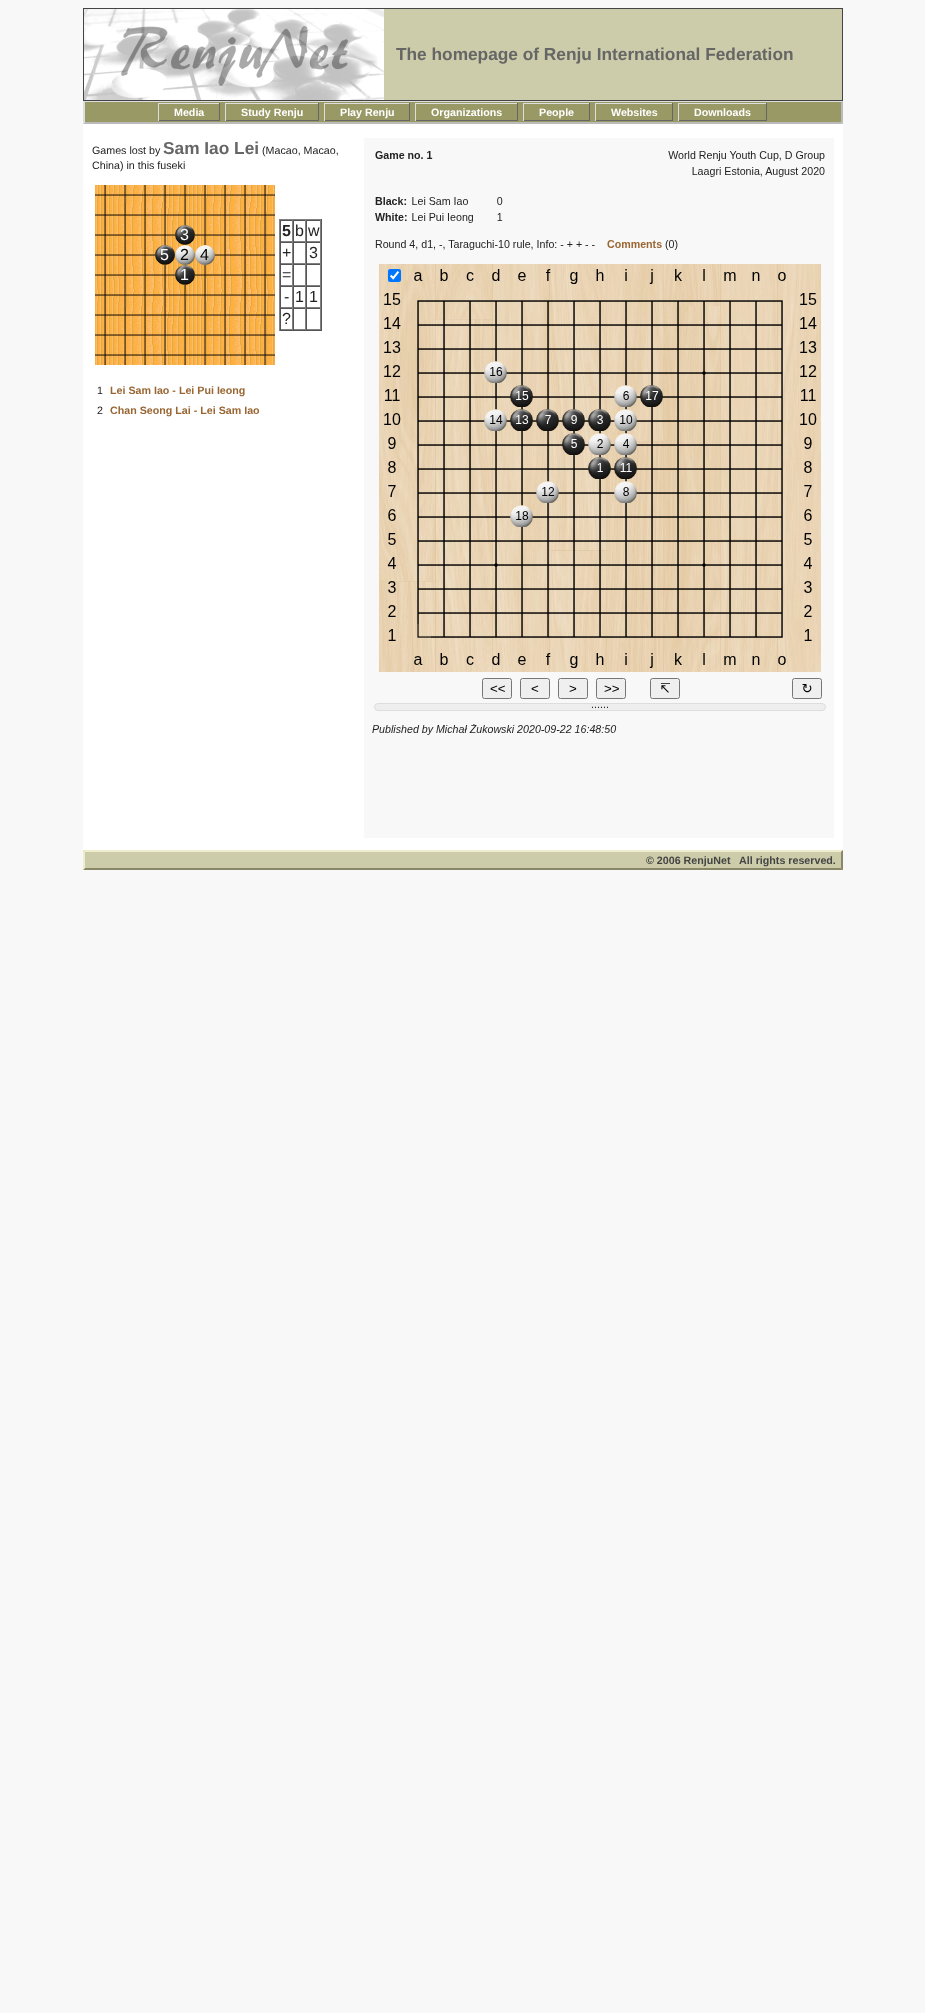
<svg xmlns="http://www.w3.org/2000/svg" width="925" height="2013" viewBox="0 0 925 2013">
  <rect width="100%" height="100%" fill="rgb(248,248,248)"/>
  <rect x="83" y="101" width="760" height="749" fill="rgb(255,255,255)"/>
  <rect x="384" y="9" width="458" height="91" fill="rgb(204,204,170)"/>
  <rect x="83.5" y="8.5" width="759" height="92" fill="none" stroke="rgb(68,68,68)"/>
  <image x="84" y="9" width="300" height="91" href="pic1.png"/>
  <text x="396" y="60" font-family="Liberation Sans" font-size="17.3" font-weight="bold" fill="rgb(102,102,102)">The homepage of Renju International Federation</text>
  <rect x="85" y="102" width="756" height="20" fill="rgb(153,153,102)"/>
  <path d="M83 101H843L841 102H85Z" fill="rgb(221,221,221)"/>
  <path d="M843 101V124L841 122V102Z" fill="rgb(187,187,187)"/>
  <path d="M843 124H83L85 122H841Z" fill="rgb(187,187,187)"/>
  <path d="M83 124V101L85 102V122Z" fill="rgb(221,221,221)"/>
  <text x="174" y="116" font-family="Liberation Sans" font-size="10.7" font-weight="bold" fill="rgb(255,255,255)">Media</text>
  <rect x="158" y="103" width="62" height="1" fill="rgb(221,221,221)"/>
  <rect x="219" y="103" width="1" height="18" fill="rgb(102,102,102)"/>
  <rect x="158" y="120" width="62" height="1" fill="rgb(102,102,102)"/>
  <rect x="158" y="103" width="1" height="18" fill="rgb(221,221,221)"/>
  <text x="241" y="116" font-family="Liberation Sans" font-size="10.7" font-weight="bold" fill="rgb(255,255,255)">Study Renju</text>
  <rect x="225" y="103" width="94" height="1" fill="rgb(221,221,221)"/>
  <rect x="318" y="103" width="1" height="18" fill="rgb(102,102,102)"/>
  <rect x="225" y="120" width="94" height="1" fill="rgb(102,102,102)"/>
  <rect x="225" y="103" width="1" height="18" fill="rgb(221,221,221)"/>
  <text x="340" y="116" font-family="Liberation Sans" font-size="10.7" font-weight="bold" fill="rgb(255,255,255)">Play Renju</text>
  <rect x="324" y="103" width="86" height="1" fill="rgb(221,221,221)"/>
  <rect x="409" y="103" width="1" height="18" fill="rgb(102,102,102)"/>
  <rect x="324" y="120" width="86" height="1" fill="rgb(102,102,102)"/>
  <rect x="324" y="103" width="1" height="18" fill="rgb(221,221,221)"/>
  <text x="431" y="116" font-family="Liberation Sans" font-size="10.7" font-weight="bold" fill="rgb(255,255,255)">Organizations</text>
  <rect x="415" y="103" width="103" height="1" fill="rgb(221,221,221)"/>
  <rect x="517" y="103" width="1" height="18" fill="rgb(102,102,102)"/>
  <rect x="415" y="120" width="103" height="1" fill="rgb(102,102,102)"/>
  <rect x="415" y="103" width="1" height="18" fill="rgb(221,221,221)"/>
  <text x="539" y="116" font-family="Liberation Sans" font-size="10.7" font-weight="bold" fill="rgb(255,255,255)">People</text>
  <rect x="523" y="103" width="67" height="1" fill="rgb(221,221,221)"/>
  <rect x="589" y="103" width="1" height="18" fill="rgb(102,102,102)"/>
  <rect x="523" y="120" width="67" height="1" fill="rgb(102,102,102)"/>
  <rect x="523" y="103" width="1" height="18" fill="rgb(221,221,221)"/>
  <text x="611" y="116" font-family="Liberation Sans" font-size="10.7" font-weight="bold" fill="rgb(255,255,255)">Websites</text>
  <rect x="595" y="103" width="78" height="1" fill="rgb(221,221,221)"/>
  <rect x="672" y="103" width="1" height="18" fill="rgb(102,102,102)"/>
  <rect x="595" y="120" width="78" height="1" fill="rgb(102,102,102)"/>
  <rect x="595" y="103" width="1" height="18" fill="rgb(221,221,221)"/>
  <text x="694" y="116" font-family="Liberation Sans" font-size="10.7" font-weight="bold" fill="rgb(255,255,255)">Downloads</text>
  <rect x="678" y="103" width="89" height="1" fill="rgb(221,221,221)"/>
  <rect x="766" y="103" width="1" height="18" fill="rgb(102,102,102)"/>
  <rect x="678" y="120" width="89" height="1" fill="rgb(102,102,102)"/>
  <rect x="678" y="103" width="1" height="18" fill="rgb(221,221,221)"/>
  <text x="92" y="154" font-family="Liberation Sans" font-size="10.7" fill="rgb(34,34,34)">Games lost by</text>
  <text x="163" y="154" font-family="Liberation Sans" font-size="17.3" font-weight="bold" fill="rgb(102,102,102)">Sam Iao Lei</text>
  <g font-family="Liberation Sans" font-size="10.7" fill="rgb(34,34,34)">
    <text x="262" y="154">(Macao, Macao,</text>
    <text x="92" y="169">China) in this fuseki</text>
  </g>
  <image x="95" y="185" width="180" height="180" href="pic2.png"/>
  <image x="95" y="185" width="20" height="20" href="pic3.png"/>
  <image x="115" y="185" width="20" height="20" href="pic4.png"/>
  <image x="135" y="185" width="20" height="20" href="pic5.png"/>
  <image x="155" y="185" width="20" height="20" href="pic6.png"/>
  <image x="175" y="185" width="20" height="20" href="pic7.png"/>
  <image x="195" y="185" width="20" height="20" href="pic8.png"/>
  <image x="215" y="185" width="20" height="20" href="pic9.png"/>
  <image x="235" y="185" width="20" height="20" href="pic10.png"/>
  <image x="255" y="185" width="20" height="20" href="pic11.png"/>
  <image x="95" y="205" width="20" height="20" href="pic12.png"/>
  <image x="115" y="205" width="20" height="20" href="pic13.png"/>
  <image x="135" y="205" width="20" height="20" href="pic14.png"/>
  <image x="155" y="205" width="20" height="20" href="pic15.png"/>
  <image x="175" y="205" width="20" height="20" href="pic16.png"/>
  <image x="195" y="205" width="20" height="20" href="pic17.png"/>
  <image x="215" y="205" width="20" height="20" href="pic18.png"/>
  <image x="235" y="205" width="20" height="20" href="pic19.png"/>
  <image x="255" y="205" width="20" height="20" href="pic20.png"/>
  <image x="95" y="225" width="20" height="20" href="pic21.png"/>
  <image x="115" y="225" width="20" height="20" href="pic22.png"/>
  <image x="135" y="225" width="20" height="20" href="pic23.png"/>
  <image x="155" y="225" width="20" height="20" href="pic24.png"/>
  <image x="175" y="225" width="20" height="20" href="pic25.png"/>
  <text x="180" y="240" font-family="Liberation Sans" font-size="16" fill="rgb(255,255,255)">3</text>
  <image x="195" y="225" width="20" height="20" href="pic26.png"/>
  <image x="215" y="225" width="20" height="20" href="pic27.png"/>
  <image x="235" y="225" width="20" height="20" href="pic28.png"/>
  <image x="255" y="225" width="20" height="20" href="pic29.png"/>
  <image x="95" y="245" width="20" height="20" href="pic30.png"/>
  <image x="115" y="245" width="20" height="20" href="pic31.png"/>
  <image x="135" y="245" width="20" height="20" href="pic32.png"/>
  <image x="155" y="245" width="20" height="20" href="pic33.png"/>
  <text x="160" y="260" font-family="Liberation Sans" font-size="16" fill="rgb(255,255,255)">5</text>
  <image x="175" y="245" width="20" height="20" href="pic34.png"/>
  <text x="180" y="260" font-family="Liberation Sans" font-size="16" fill="rgb(0,0,0)">2</text>
  <image x="195" y="245" width="20" height="20" href="pic35.png"/>
  <text x="200" y="260" font-family="Liberation Sans" font-size="16" fill="rgb(0,0,0)">4</text>
  <image x="215" y="245" width="20" height="20" href="pic36.png"/>
  <image x="235" y="245" width="20" height="20" href="pic37.png"/>
  <image x="255" y="245" width="20" height="20" href="pic38.png"/>
  <image x="95" y="265" width="20" height="20" href="pic39.png"/>
  <image x="115" y="265" width="20" height="20" href="pic40.png"/>
  <image x="135" y="265" width="20" height="20" href="pic41.png"/>
  <image x="155" y="265" width="20" height="20" href="pic42.png"/>
  <image x="175" y="265" width="20" height="20" href="pic43.png"/>
  <text x="180" y="280" font-family="Liberation Sans" font-size="16" fill="rgb(255,255,255)">1</text>
  <image x="195" y="265" width="20" height="20" href="pic44.png"/>
  <image x="215" y="265" width="20" height="20" href="pic45.png"/>
  <image x="235" y="265" width="20" height="20" href="pic46.png"/>
  <image x="255" y="265" width="20" height="20" href="pic47.png"/>
  <image x="95" y="285" width="20" height="20" href="pic48.png"/>
  <image x="115" y="285" width="20" height="20" href="pic49.png"/>
  <image x="135" y="285" width="20" height="20" href="pic50.png"/>
  <image x="155" y="285" width="20" height="20" href="pic51.png"/>
  <image x="175" y="285" width="20" height="20" href="pic52.png"/>
  <image x="195" y="285" width="20" height="20" href="pic53.png"/>
  <image x="215" y="285" width="20" height="20" href="pic54.png"/>
  <image x="235" y="285" width="20" height="20" href="pic55.png"/>
  <image x="255" y="285" width="20" height="20" href="pic56.png"/>
  <image x="95" y="305" width="20" height="20" href="pic57.png"/>
  <image x="115" y="305" width="20" height="20" href="pic58.png"/>
  <image x="135" y="305" width="20" height="20" href="pic59.png"/>
  <image x="155" y="305" width="20" height="20" href="pic60.png"/>
  <image x="175" y="305" width="20" height="20" href="pic61.png"/>
  <image x="195" y="305" width="20" height="20" href="pic62.png"/>
  <image x="215" y="305" width="20" height="20" href="pic63.png"/>
  <image x="235" y="305" width="20" height="20" href="pic64.png"/>
  <image x="255" y="305" width="20" height="20" href="pic65.png"/>
  <image x="95" y="325" width="20" height="20" href="pic66.png"/>
  <image x="115" y="325" width="20" height="20" href="pic67.png"/>
  <image x="135" y="325" width="20" height="20" href="pic68.png"/>
  <image x="155" y="325" width="20" height="20" href="pic69.png"/>
  <image x="175" y="325" width="20" height="20" href="pic70.png"/>
  <image x="195" y="325" width="20" height="20" href="pic71.png"/>
  <image x="215" y="325" width="20" height="20" href="pic72.png"/>
  <image x="235" y="325" width="20" height="20" href="pic73.png"/>
  <image x="255" y="325" width="20" height="20" href="pic74.png"/>
  <image x="95" y="345" width="20" height="20" href="pic75.png"/>
  <image x="115" y="345" width="20" height="20" href="pic76.png"/>
  <image x="135" y="345" width="20" height="20" href="pic77.png"/>
  <image x="155" y="345" width="20" height="20" href="pic78.png"/>
  <image x="175" y="345" width="20" height="20" href="pic79.png"/>
  <image x="195" y="345" width="20" height="20" href="pic80.png"/>
  <image x="215" y="345" width="20" height="20" href="pic81.png"/>
  <image x="235" y="345" width="20" height="20" href="pic82.png"/>
  <image x="255" y="345" width="20" height="20" href="pic83.png"/>
  <rect x="279" y="219" width="43" height="1" fill="rgb(128,128,128)"/>
  <rect x="321" y="219" width="1" height="112" fill="rgb(85,85,85)"/>
  <rect x="279" y="330" width="43" height="1" fill="rgb(85,85,85)"/>
  <rect x="279" y="219" width="1" height="112" fill="rgb(128,128,128)"/>
  <rect x="280" y="220" width="41" height="1" fill="rgb(85,85,85)"/>
  <rect x="292" y="220" width="1" height="22" fill="rgb(128,128,128)"/>
  <rect x="280" y="241" width="13" height="1" fill="rgb(128,128,128)"/>
  <rect x="280" y="220" width="1" height="22" fill="rgb(85,85,85)"/>
  <text x="282" y="236" font-family="Liberation Sans" font-size="16" font-weight="bold" fill="rgb(34,34,34)">5</text>
  <rect x="305" y="220" width="1" height="22" fill="rgb(128,128,128)"/>
  <rect x="293" y="241" width="13" height="1" fill="rgb(128,128,128)"/>
  <rect x="293" y="220" width="1" height="22" fill="rgb(85,85,85)"/>
  <text x="295" y="236" font-family="Liberation Sans" font-size="16" fill="rgb(34,34,34)">b</text>
  <rect x="320" y="220" width="1" height="22" fill="rgb(128,128,128)"/>
  <rect x="306" y="241" width="15" height="1" fill="rgb(128,128,128)"/>
  <rect x="306" y="220" width="1" height="22" fill="rgb(85,85,85)"/>
  <text x="308" y="236" font-family="Liberation Sans" font-size="16" fill="rgb(34,34,34)">w</text>
  <rect x="280" y="242" width="41" height="1" fill="rgb(85,85,85)"/>
  <rect x="292" y="242" width="1" height="22" fill="rgb(128,128,128)"/>
  <rect x="280" y="263" width="13" height="1" fill="rgb(128,128,128)"/>
  <rect x="280" y="242" width="1" height="22" fill="rgb(85,85,85)"/>
  <text x="282" y="258" font-family="Liberation Sans" font-size="16" fill="rgb(34,34,34)">+</text>
  <rect x="305" y="242" width="1" height="22" fill="rgb(128,128,128)"/>
  <rect x="293" y="263" width="13" height="1" fill="rgb(128,128,128)"/>
  <rect x="293" y="242" width="1" height="22" fill="rgb(85,85,85)"/>
  <rect x="320" y="242" width="1" height="22" fill="rgb(128,128,128)"/>
  <rect x="306" y="263" width="15" height="1" fill="rgb(128,128,128)"/>
  <rect x="306" y="242" width="1" height="22" fill="rgb(85,85,85)"/>
  <text x="309" y="258" font-family="Liberation Sans" font-size="16" fill="rgb(34,34,34)">3</text>
  <rect x="280" y="264" width="41" height="1" fill="rgb(85,85,85)"/>
  <rect x="292" y="264" width="1" height="22" fill="rgb(128,128,128)"/>
  <rect x="280" y="285" width="13" height="1" fill="rgb(128,128,128)"/>
  <rect x="280" y="264" width="1" height="22" fill="rgb(85,85,85)"/>
  <text x="282" y="280" font-family="Liberation Sans" font-size="16" fill="rgb(34,34,34)">=</text>
  <rect x="305" y="264" width="1" height="22" fill="rgb(128,128,128)"/>
  <rect x="293" y="285" width="13" height="1" fill="rgb(128,128,128)"/>
  <rect x="293" y="264" width="1" height="22" fill="rgb(85,85,85)"/>
  <rect x="320" y="264" width="1" height="22" fill="rgb(128,128,128)"/>
  <rect x="306" y="285" width="15" height="1" fill="rgb(128,128,128)"/>
  <rect x="306" y="264" width="1" height="22" fill="rgb(85,85,85)"/>
  <rect x="280" y="286" width="41" height="1" fill="rgb(85,85,85)"/>
  <rect x="292" y="286" width="1" height="22" fill="rgb(128,128,128)"/>
  <rect x="280" y="307" width="13" height="1" fill="rgb(128,128,128)"/>
  <rect x="280" y="286" width="1" height="22" fill="rgb(85,85,85)"/>
  <text x="284" y="302" font-family="Liberation Sans" font-size="16" fill="rgb(34,34,34)">-</text>
  <rect x="305" y="286" width="1" height="22" fill="rgb(128,128,128)"/>
  <rect x="293" y="307" width="13" height="1" fill="rgb(128,128,128)"/>
  <rect x="293" y="286" width="1" height="22" fill="rgb(85,85,85)"/>
  <text x="295" y="302" font-family="Liberation Sans" font-size="16" fill="rgb(34,34,34)">1</text>
  <rect x="320" y="286" width="1" height="22" fill="rgb(128,128,128)"/>
  <rect x="306" y="307" width="15" height="1" fill="rgb(128,128,128)"/>
  <rect x="306" y="286" width="1" height="22" fill="rgb(85,85,85)"/>
  <text x="309" y="302" font-family="Liberation Sans" font-size="16" fill="rgb(34,34,34)">1</text>
  <rect x="280" y="308" width="41" height="1" fill="rgb(85,85,85)"/>
  <rect x="292" y="308" width="1" height="22" fill="rgb(128,128,128)"/>
  <rect x="280" y="329" width="13" height="1" fill="rgb(128,128,128)"/>
  <rect x="280" y="308" width="1" height="22" fill="rgb(85,85,85)"/>
  <text x="282" y="324" font-family="Liberation Sans" font-size="16" fill="rgb(34,34,34)">?</text>
  <rect x="305" y="308" width="1" height="22" fill="rgb(128,128,128)"/>
  <rect x="293" y="329" width="13" height="1" fill="rgb(128,128,128)"/>
  <rect x="293" y="308" width="1" height="22" fill="rgb(85,85,85)"/>
  <rect x="320" y="308" width="1" height="22" fill="rgb(128,128,128)"/>
  <rect x="306" y="329" width="15" height="1" fill="rgb(128,128,128)"/>
  <rect x="306" y="308" width="1" height="22" fill="rgb(85,85,85)"/>
  <text x="97" y="394" font-family="Liberation Sans" font-size="10.7" fill="rgb(34,34,34)">1</text>
  <text x="110" y="394" font-family="Liberation Sans" font-size="10.7" font-weight="bold" fill="rgb(153,102,51)">Lei Sam Iao - Lei Pui Ieong</text>
  <text x="97" y="414" font-family="Liberation Sans" font-size="10.7" fill="rgb(34,34,34)">2</text>
  <text x="110" y="414" font-family="Liberation Sans" font-size="10.7" font-weight="bold" fill="rgb(153,102,51)">Chan Seong Lai - Lei Sam Iao</text>
  <image x="364" y="138" width="470" height="700" href="pic84.png"/>
  <rect x="83" y="850" width="760" height="20" fill="rgb(204,204,170)"/>
  <path d="M83 850H843L841 852H85Z" fill="rgb(238,238,204)"/>
  <path d="M843 850V870L841 868V852Z" fill="rgb(136,136,102)"/>
  <path d="M843 870H83L85 868H841Z" fill="rgb(136,136,102)"/>
  <path d="M83 870V850L85 852V868Z" fill="rgb(238,238,204)"/>
  <text x="646" y="864" font-family="Liberation Sans" font-size="10.7" font-weight="bold" fill="rgb(68,68,68)" xml:space="preserve">© 2006 RenjuNet   All rights reserved.</text>
</svg>
